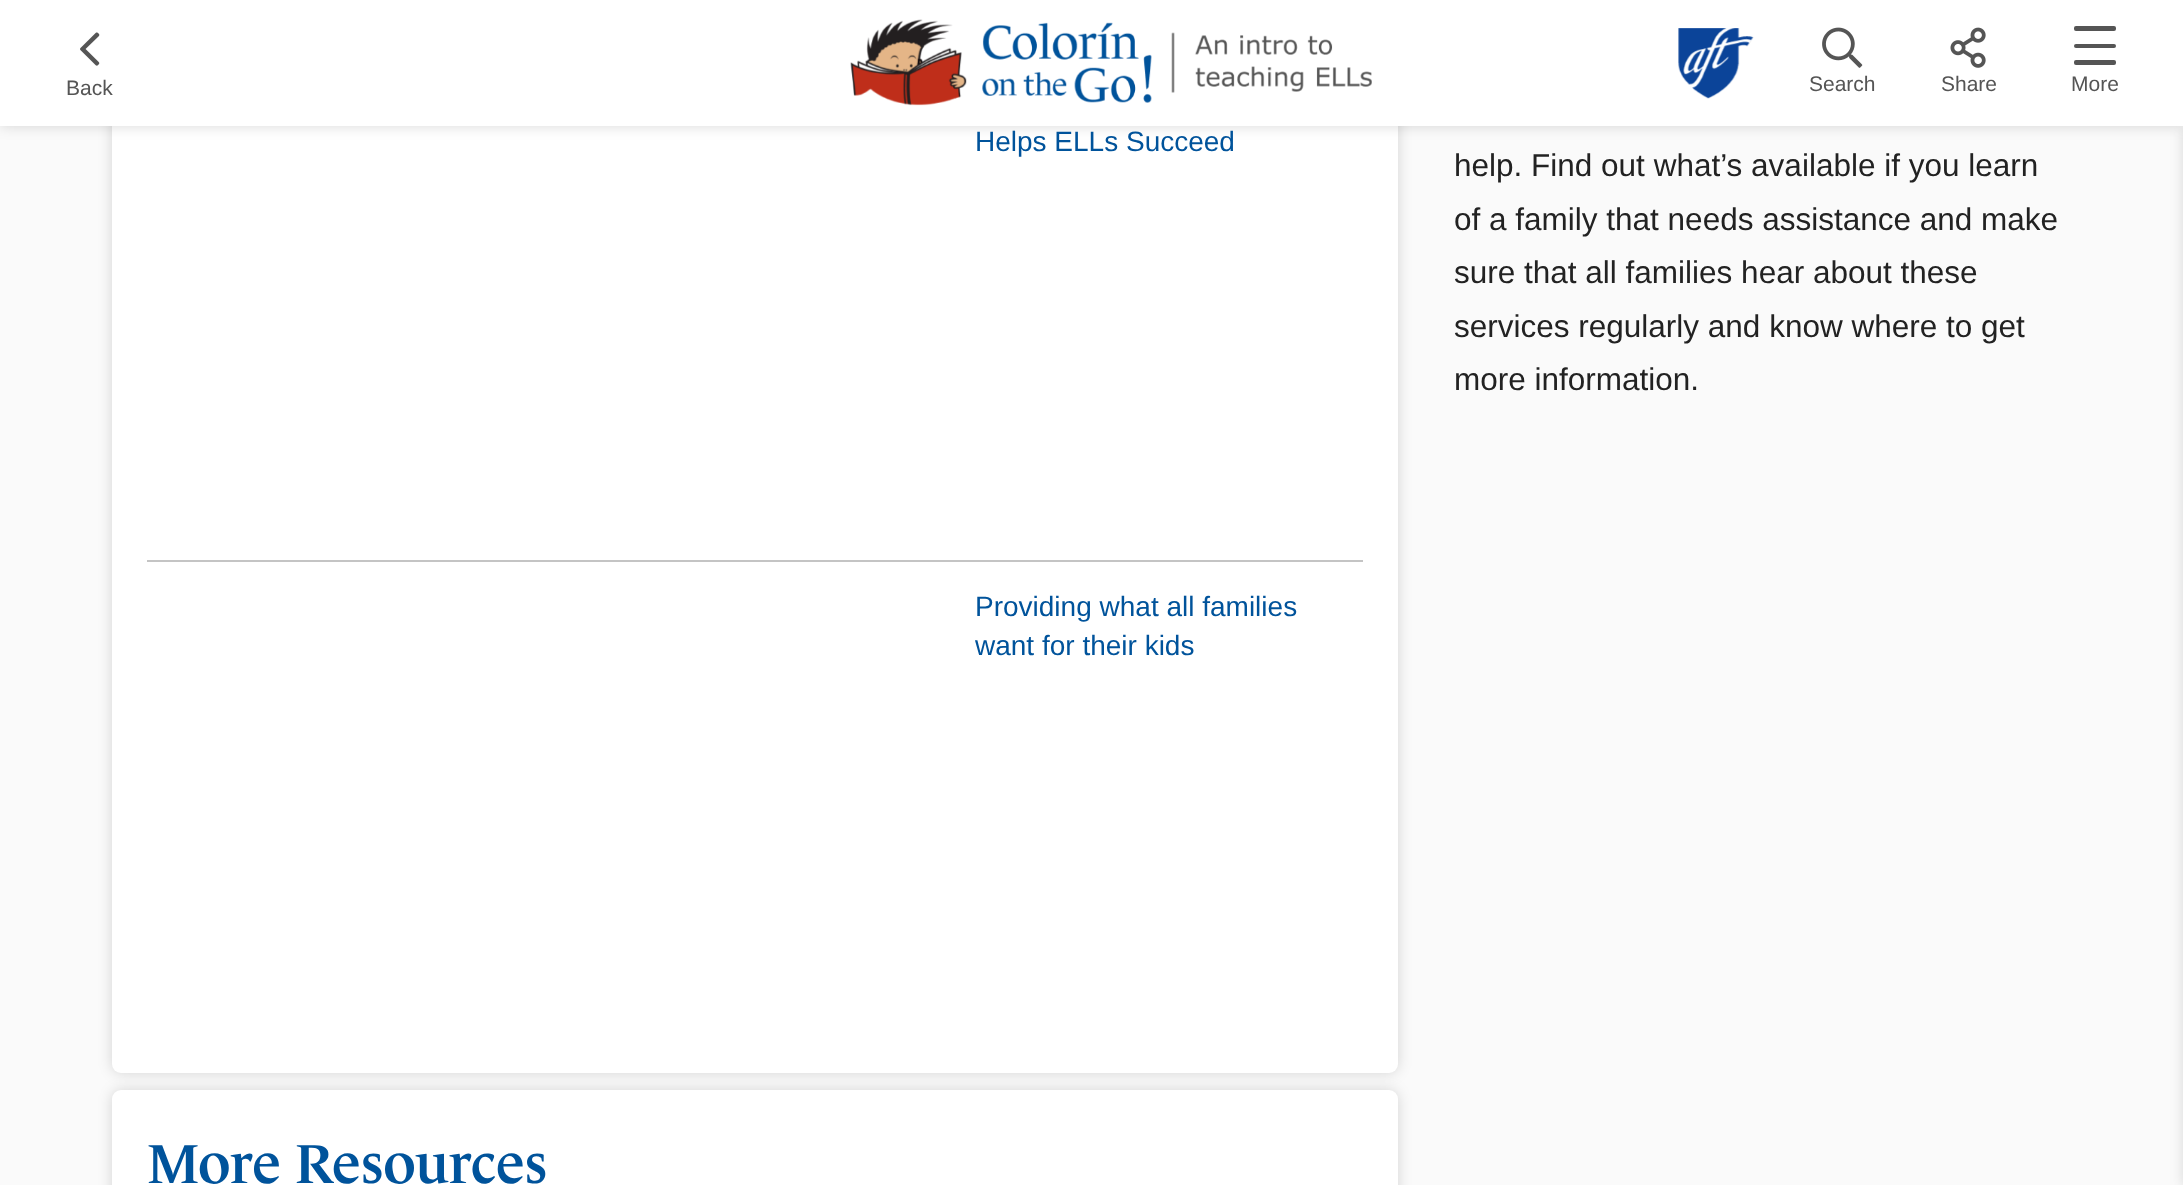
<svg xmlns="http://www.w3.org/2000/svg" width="2183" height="1185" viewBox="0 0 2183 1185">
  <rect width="100%" height="100%" fill="rgb(250,250,250)"/>
  <rect x="112" y="-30" width="1286" height="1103" rx="9" fill="rgba(0,0,0,0.15)" filter="blur(7px)"/>
  <rect x="112" y="-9" width="1286" height="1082" rx="9" fill="rgb(255,255,255)"/>
  <rect x="0" y="0" width="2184" height="126" fill="rgba(0,0,0,0.15)" filter="blur(7px)"/>
  <rect x="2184" y="126" width="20" height="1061" fill="rgba(0,0,0,0.15)" filter="blur(7px)"/>
  <rect x="0" y="0" width="2183" height="126" fill="rgb(255,255,255)"/>
  <image x="80" y="32" width="20" height="34" href="pic1.png"/>
  <text x="66" y="95" font-family="Liberation Sans" font-size="21" fill="rgb(85,85,85)">Back</text>
  <image x="850" y="19" width="522" height="87" href="pic2.png"/>
  <image x="1678" y="28" width="76" height="71" href="pic3.png"/>
  <image x="1822" y="27" width="41" height="41" href="pic4.png"/>
  <text x="1809" y="91" font-family="Liberation Sans" font-size="21" fill="rgb(85,85,85)">Search</text>
  <image x="1950" y="27" width="36" height="41" href="pic5.png"/>
  <text x="1941" y="91" font-family="Liberation Sans" font-size="21" fill="rgb(85,85,85)">Share</text>
  <rect x="2074" y="26" width="42" height="5" rx="2" fill="rgb(85,85,85)"/>
  <rect x="2074" y="44" width="42" height="4" rx="2" fill="rgb(85,85,85)"/>
  <rect x="2074" y="60" width="42" height="5" rx="2" fill="rgb(85,85,85)"/>
  <text x="2071" y="91" font-family="Liberation Sans" font-size="21" fill="rgb(85,85,85)">More</text>
  <text x="975" y="151" font-family="Liberation Sans" font-size="28" fill="rgb(0,83,155)">Helps ELLs Succeed</text>
  <rect x="147" y="560" width="1216" height="2" fill="rgb(196,196,196)"/>
  <g font-family="Liberation Sans" font-size="28" fill="rgb(0,83,155)">
    <text>
      <tspan x="975" y="616">Providing what all families</tspan>
      <tspan x="975" y="655">want for their kids</tspan>
    </text>
  </g>
  <rect x="112" y="1090" width="1286" height="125" rx="9" fill="rgba(0,0,0,0.15)" filter="blur(7px)"/>
  <rect x="112" y="1090" width="1286" height="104" rx="9" fill="rgb(255,255,255)"/>
  <text x="147" y="1183" font-family="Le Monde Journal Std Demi" font-size="56" font-weight="bold" fill="rgb(0,83,155)">More Resources</text>
  <g font-family="Liberation Sans" font-size="31.5" fill="rgb(34,34,34)">
    <text>
      <tspan x="1454" y="176">help. Find out what’s available if you learn</tspan>
      <tspan x="1454" y="230">of a family that needs assistance and make</tspan>
      <tspan x="1454" y="283">sure that all families hear about these</tspan>
      <tspan x="1454" y="337">services regularly and know where to get</tspan>
      <tspan x="1454" y="390">more information.</tspan>
    </text>
  </g>
</svg>
